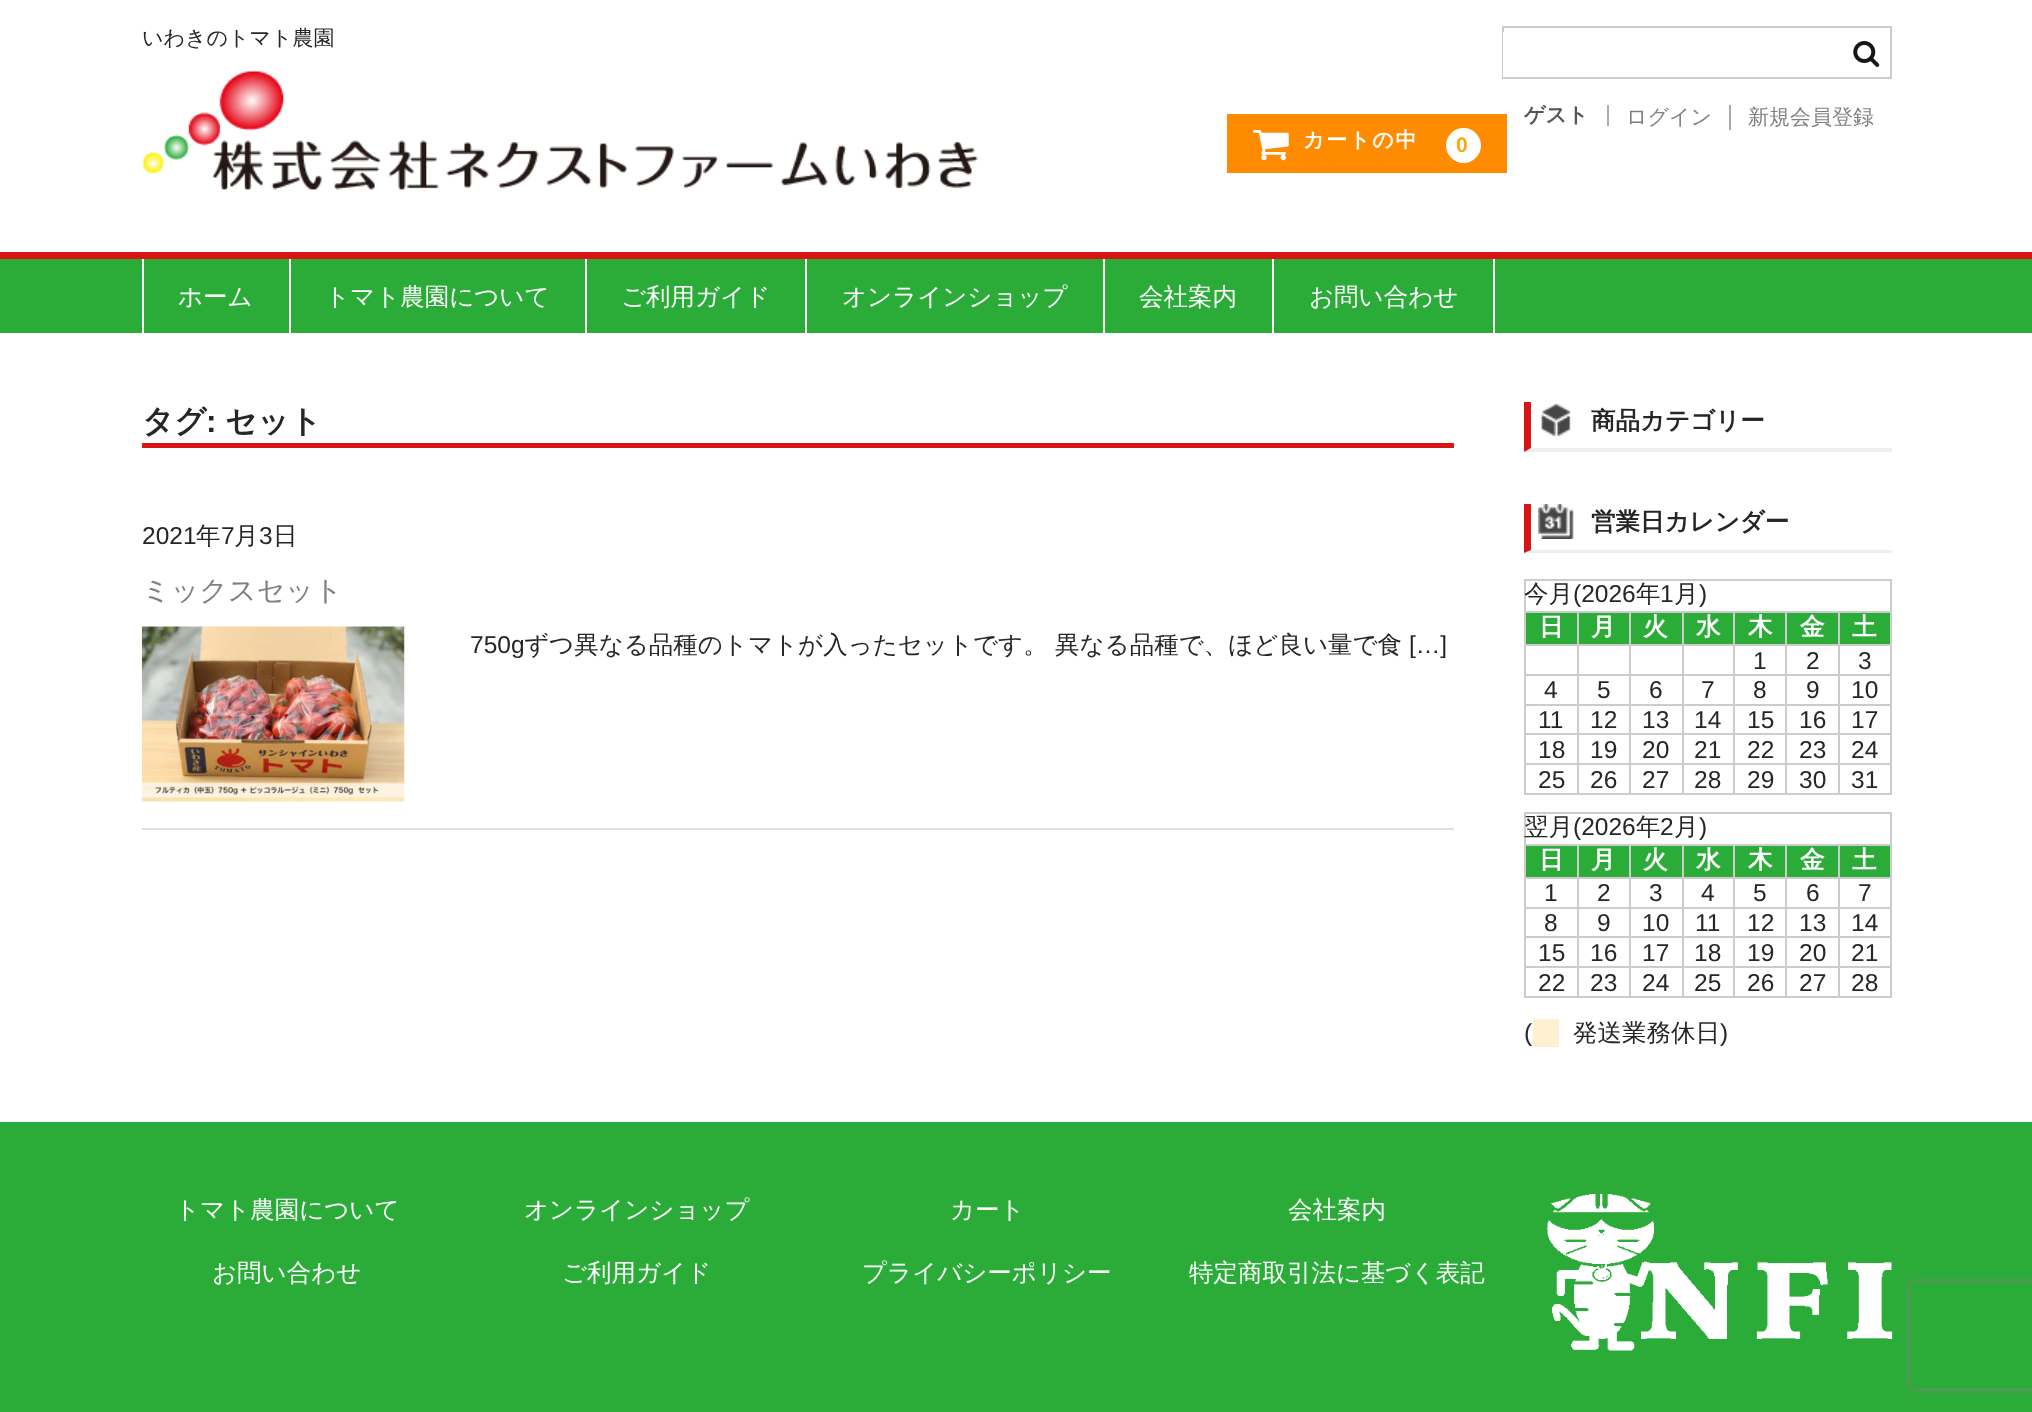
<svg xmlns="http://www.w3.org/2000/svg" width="2032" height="1412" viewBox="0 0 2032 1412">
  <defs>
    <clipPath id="clip1"><path d="M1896 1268H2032V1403H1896ZM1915 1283H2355C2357 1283 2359 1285 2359 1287V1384C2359 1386 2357 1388 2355 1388H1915C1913 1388 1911 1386 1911 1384V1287C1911 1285 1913 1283 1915 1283Z" clip-rule="evenodd"/></clipPath>
  </defs>
  <rect width="100%" height="100%" fill="rgb(255,255,255)"/>
  <text x="142" y="45" font-family="WenQuanYi Zen Hei" font-size="21" font-weight="500" fill="rgb(38,38,38)">いわきのトマト農園</text>
  <image x="142" y="70" width="836" height="120" href="pic1.png"/>
  <rect x="1503" y="27" width="388" height="51" fill="none" stroke="rgb(204,204,204)" stroke-width="2"/>
  <rect x="1503" y="32" width="1" height="45" fill="rgb(255,255,255)"/>
  <image x="1853" y="41" width="27" height="26" href="pic2.png"/>
  <rect x="1607" y="105" width="2" height="21" fill="rgb(170,170,170)"/>
  <text x="1524" y="122" font-family="WenQuanYi Zen Hei" font-size="21" font-weight="bold" fill="rgb(86,86,86)">ゲスト</text>
  <rect x="1729" y="105" width="2" height="25" fill="rgb(170,170,170)"/>
  <g font-family="WenQuanYi Zen Hei" font-size="21" font-weight="500" fill="rgb(128,128,128)">
    <text x="1626" y="124">ログイン</text>
    <text x="1748" y="124">新規会員登録</text>
  </g>
  <rect x="1227" y="114" width="280" height="59" fill="rgb(255,140,0)"/>
  <image x="1253" y="130" width="36" height="31" href="pic3.png"/>
  <text x="1303" y="147" font-family="WenQuanYi Zen Hei" font-size="21" font-weight="bold" letter-spacing="1.75" fill="rgb(255,255,255)">カートの中</text>
  <circle cx="1463.5" cy="145.5" r="17.5" fill="rgb(255,255,255)"/>
  <text x="1456" y="152" font-family="Liberation Sans" font-size="21" font-weight="bold" letter-spacing="1.75" fill="rgb(251,166,13)">0</text>
  <rect x="0" y="259" width="2032" height="74" fill="rgb(43,172,57)"/>
  <rect x="0" y="252" width="2032" height="7" fill="rgb(216,20,20)"/>
  <rect x="289" y="259" width="2" height="74" fill="rgb(255,255,255)"/>
  <rect x="142" y="259" width="2" height="74" fill="rgb(255,255,255)"/>
  <text x="178" y="305" font-family="WenQuanYi Zen Hei" font-size="24.5" font-weight="500" fill="rgb(255,255,255)">ホーム</text>
  <rect x="585" y="259" width="2" height="74" fill="rgb(255,255,255)"/>
  <text x="325" y="305" font-family="WenQuanYi Zen Hei" font-size="24.5" font-weight="500" fill="rgb(255,255,255)">トマト農園について</text>
  <rect x="805" y="259" width="2" height="74" fill="rgb(255,255,255)"/>
  <text x="621" y="305" font-family="WenQuanYi Zen Hei" font-size="24.5" font-weight="500" fill="rgb(255,255,255)">ご利用ガイド</text>
  <rect x="1103" y="259" width="2" height="74" fill="rgb(255,255,255)"/>
  <text x="842" y="305" font-family="WenQuanYi Zen Hei" font-size="24.5" font-weight="500" fill="rgb(255,255,255)">オンラインショップ</text>
  <rect x="1272" y="259" width="2" height="74" fill="rgb(255,255,255)"/>
  <text x="1139" y="305" font-family="WenQuanYi Zen Hei" font-size="24.5" font-weight="500" fill="rgb(255,255,255)">会社案内</text>
  <rect x="1493" y="259" width="2" height="74" fill="rgb(255,255,255)"/>
  <text x="1309" y="305" font-family="WenQuanYi Zen Hei" font-size="24.5" font-weight="500" fill="rgb(255,255,255)">お問い合わせ</text>
  <rect x="142" y="443" width="1312" height="5" fill="rgb(216,20,20)"/>
  <text x="142" y="432" font-family="WenQuanYi Zen Hei" font-size="31.5" font-weight="bold" fill="rgb(38,38,38)">タグ</text>
  <text x="206" y="432" font-family="Liberation Sans" font-size="31.5" font-weight="bold" fill="rgb(38,38,38)">:</text>
  <text x="225" y="432" font-family="WenQuanYi Zen Hei" font-size="31.5" font-weight="bold" fill="rgb(38,38,38)">セット</text>
  <rect x="142" y="828" width="1312" height="2" fill="rgb(224,224,224)"/>
  <text x="142" y="544" font-family="Liberation Sans" font-size="24.5" fill="rgb(38,38,38)">2021</text>
  <text x="196" y="544" font-family="WenQuanYi Zen Hei" font-size="24.5" font-weight="500" fill="rgb(38,38,38)">年</text>
  <text x="221" y="544" font-family="Liberation Sans" font-size="24.5" fill="rgb(38,38,38)">7</text>
  <text x="234" y="544" font-family="WenQuanYi Zen Hei" font-size="24.5" font-weight="500" fill="rgb(38,38,38)">月</text>
  <text x="259" y="544" font-family="Liberation Sans" font-size="24.5" fill="rgb(38,38,38)">3</text>
  <text x="273" y="544" font-family="WenQuanYi Zen Hei" font-size="24.5" font-weight="500" fill="rgb(38,38,38)">日</text>
  <text x="142" y="600" font-family="WenQuanYi Zen Hei" font-size="28" font-weight="500" fill="rgb(128,128,128)">ミックスセット</text>
  <image x="141" y="626" width="264" height="176" href="pic4.png"/>
  <text x="470" y="653" font-family="Liberation Sans" font-size="24.5" fill="rgb(38,38,38)">750g</text>
  <text x="524" y="653" font-family="WenQuanYi Zen Hei" font-size="24.5" font-weight="500" fill="rgb(38,38,38)">ずつ異なる品種のトマトが入ったセットです。 異なる品種で、ほど良い量で食</text>
  <text x="1409" y="653" font-family="Liberation Sans" font-size="24.5" fill="rgb(38,38,38)">[…]</text>
  <path d="M1892 452H1524L1531 448H1892Z" fill="rgb(238,238,238)"/>
  <path d="M1524 452V402H1531V448Z" fill="rgb(216,20,20)"/>
  <image x="1541" y="403" width="30" height="34" href="pic5.png"/>
  <text x="1591" y="429" font-family="WenQuanYi Zen Hei" font-size="24.5" font-weight="bold" fill="rgb(38,38,38)">商品カテゴリー</text>
  <path d="M1892 553H1524L1531 550H1892Z" fill="rgb(238,238,238)"/>
  <path d="M1524 553V504H1531V550Z" fill="rgb(216,20,20)"/>
  <image x="1538" y="504" width="36" height="35" href="pic6.png"/>
  <text x="1591" y="530" font-family="WenQuanYi Zen Hei" font-size="24.5" font-weight="bold" fill="rgb(38,38,38)">営業日カレンダー</text>
  <rect x="1524" y="579" width="368" height="2" fill="rgb(204,204,204)"/>
  <rect x="1890" y="579" width="2" height="216" fill="rgb(204,204,204)"/>
  <rect x="1524" y="793" width="368" height="2" fill="rgb(204,204,204)"/>
  <rect x="1524" y="579" width="2" height="216" fill="rgb(204,204,204)"/>
  <text x="1524" y="602" font-family="WenQuanYi Zen Hei" font-size="24.5" font-weight="500" fill="rgb(38,38,38)">今月</text>
  <text x="1573" y="602" font-family="Liberation Sans" font-size="24.5" fill="rgb(38,38,38)">(2026</text>
  <text x="1636" y="602" font-family="WenQuanYi Zen Hei" font-size="24.5" font-weight="500" fill="rgb(38,38,38)">年</text>
  <text x="1660" y="602" font-family="Liberation Sans" font-size="24.5" fill="rgb(38,38,38)">1</text>
  <text x="1674" y="602" font-family="WenQuanYi Zen Hei" font-size="24.5" font-weight="500" fill="rgb(38,38,38)">月</text>
  <text x="1699" y="602" font-family="Liberation Sans" font-size="24.5" fill="rgb(38,38,38)">)</text>
  <rect x="1526" y="613" width="51" height="31" fill="rgb(43,172,57)"/>
  <rect x="1838" y="611" width="54" height="2" fill="rgb(204,204,204)"/>
  <rect x="1838" y="644" width="54" height="2" fill="rgb(204,204,204)"/>
  <rect x="1838" y="674" width="54" height="2" fill="rgb(204,204,204)"/>
  <rect x="1838" y="704" width="54" height="2" fill="rgb(204,204,204)"/>
  <rect x="1838" y="733" width="54" height="2" fill="rgb(204,204,204)"/>
  <rect x="1838" y="763" width="54" height="2" fill="rgb(204,204,204)"/>
  <rect x="1838" y="763" width="2" height="32" fill="rgb(204,204,204)"/>
  <rect x="1785" y="763" width="54" height="2" fill="rgb(204,204,204)"/>
  <rect x="1838" y="733" width="2" height="32" fill="rgb(204,204,204)"/>
  <rect x="1785" y="733" width="54" height="2" fill="rgb(204,204,204)"/>
  <rect x="1838" y="704" width="2" height="31" fill="rgb(204,204,204)"/>
  <rect x="1785" y="704" width="54" height="2" fill="rgb(204,204,204)"/>
  <rect x="1838" y="674" width="2" height="31" fill="rgb(204,204,204)"/>
  <rect x="1785" y="674" width="54" height="2" fill="rgb(204,204,204)"/>
  <rect x="1838" y="644" width="2" height="32" fill="rgb(204,204,204)"/>
  <rect x="1785" y="644" width="54" height="2" fill="rgb(204,204,204)"/>
  <rect x="1838" y="611" width="2" height="35" fill="rgb(204,204,204)"/>
  <rect x="1785" y="611" width="54" height="2" fill="rgb(204,204,204)"/>
  <rect x="1785" y="763" width="2" height="32" fill="rgb(204,204,204)"/>
  <rect x="1733" y="763" width="54" height="2" fill="rgb(204,204,204)"/>
  <rect x="1785" y="733" width="2" height="32" fill="rgb(204,204,204)"/>
  <rect x="1733" y="733" width="54" height="2" fill="rgb(204,204,204)"/>
  <rect x="1785" y="704" width="2" height="31" fill="rgb(204,204,204)"/>
  <rect x="1733" y="704" width="54" height="2" fill="rgb(204,204,204)"/>
  <rect x="1785" y="674" width="2" height="31" fill="rgb(204,204,204)"/>
  <rect x="1733" y="674" width="54" height="2" fill="rgb(204,204,204)"/>
  <rect x="1785" y="644" width="2" height="32" fill="rgb(204,204,204)"/>
  <rect x="1733" y="644" width="54" height="2" fill="rgb(204,204,204)"/>
  <rect x="1785" y="611" width="2" height="35" fill="rgb(204,204,204)"/>
  <rect x="1733" y="611" width="54" height="2" fill="rgb(204,204,204)"/>
  <rect x="1733" y="763" width="2" height="32" fill="rgb(204,204,204)"/>
  <rect x="1682" y="763" width="52" height="2" fill="rgb(204,204,204)"/>
  <rect x="1733" y="733" width="2" height="32" fill="rgb(204,204,204)"/>
  <rect x="1682" y="733" width="52" height="2" fill="rgb(204,204,204)"/>
  <rect x="1733" y="704" width="2" height="31" fill="rgb(204,204,204)"/>
  <rect x="1682" y="704" width="52" height="2" fill="rgb(204,204,204)"/>
  <rect x="1733" y="674" width="2" height="31" fill="rgb(204,204,204)"/>
  <rect x="1682" y="674" width="52" height="2" fill="rgb(204,204,204)"/>
  <rect x="1733" y="644" width="2" height="32" fill="rgb(204,204,204)"/>
  <rect x="1682" y="644" width="52" height="2" fill="rgb(204,204,204)"/>
  <rect x="1733" y="611" width="2" height="35" fill="rgb(204,204,204)"/>
  <rect x="1682" y="611" width="52" height="2" fill="rgb(204,204,204)"/>
  <rect x="1682" y="763" width="2" height="32" fill="rgb(204,204,204)"/>
  <rect x="1629" y="763" width="55" height="2" fill="rgb(204,204,204)"/>
  <rect x="1682" y="733" width="2" height="32" fill="rgb(204,204,204)"/>
  <rect x="1629" y="733" width="55" height="2" fill="rgb(204,204,204)"/>
  <rect x="1682" y="704" width="2" height="31" fill="rgb(204,204,204)"/>
  <rect x="1629" y="704" width="55" height="2" fill="rgb(204,204,204)"/>
  <rect x="1682" y="674" width="2" height="31" fill="rgb(204,204,204)"/>
  <rect x="1629" y="674" width="55" height="2" fill="rgb(204,204,204)"/>
  <rect x="1682" y="644" width="2" height="32" fill="rgb(204,204,204)"/>
  <rect x="1629" y="644" width="55" height="2" fill="rgb(204,204,204)"/>
  <rect x="1682" y="611" width="2" height="35" fill="rgb(204,204,204)"/>
  <rect x="1629" y="611" width="55" height="2" fill="rgb(204,204,204)"/>
  <rect x="1629" y="763" width="2" height="32" fill="rgb(204,204,204)"/>
  <rect x="1577" y="763" width="54" height="2" fill="rgb(204,204,204)"/>
  <rect x="1629" y="733" width="2" height="32" fill="rgb(204,204,204)"/>
  <rect x="1577" y="733" width="54" height="2" fill="rgb(204,204,204)"/>
  <rect x="1629" y="704" width="2" height="31" fill="rgb(204,204,204)"/>
  <rect x="1577" y="704" width="54" height="2" fill="rgb(204,204,204)"/>
  <rect x="1629" y="674" width="2" height="31" fill="rgb(204,204,204)"/>
  <rect x="1577" y="674" width="54" height="2" fill="rgb(204,204,204)"/>
  <rect x="1629" y="644" width="2" height="32" fill="rgb(204,204,204)"/>
  <rect x="1577" y="644" width="54" height="2" fill="rgb(204,204,204)"/>
  <rect x="1629" y="611" width="2" height="35" fill="rgb(204,204,204)"/>
  <rect x="1577" y="611" width="54" height="2" fill="rgb(204,204,204)"/>
  <rect x="1577" y="763" width="2" height="32" fill="rgb(204,204,204)"/>
  <rect x="1524" y="763" width="55" height="2" fill="rgb(204,204,204)"/>
  <rect x="1577" y="733" width="2" height="32" fill="rgb(204,204,204)"/>
  <rect x="1524" y="733" width="55" height="2" fill="rgb(204,204,204)"/>
  <rect x="1577" y="704" width="2" height="31" fill="rgb(204,204,204)"/>
  <rect x="1524" y="704" width="55" height="2" fill="rgb(204,204,204)"/>
  <rect x="1577" y="674" width="2" height="31" fill="rgb(204,204,204)"/>
  <rect x="1524" y="674" width="55" height="2" fill="rgb(204,204,204)"/>
  <rect x="1577" y="644" width="2" height="32" fill="rgb(204,204,204)"/>
  <rect x="1524" y="644" width="55" height="2" fill="rgb(204,204,204)"/>
  <rect x="1577" y="611" width="2" height="35" fill="rgb(204,204,204)"/>
  <rect x="1524" y="611" width="55" height="2" fill="rgb(204,204,204)"/>
  <text x="1539" y="635" font-family="WenQuanYi Zen Hei" font-size="24.5" font-weight="bold" fill="rgb(255,255,255)">日</text>
  <rect x="1579" y="613" width="50" height="31" fill="rgb(43,172,57)"/>
  <text x="1591" y="635" font-family="WenQuanYi Zen Hei" font-size="24.5" font-weight="bold" fill="rgb(255,255,255)">月</text>
  <rect x="1631" y="613" width="51" height="31" fill="rgb(43,172,57)"/>
  <text x="1643" y="635" font-family="WenQuanYi Zen Hei" font-size="24.5" font-weight="bold" fill="rgb(255,255,255)">火</text>
  <rect x="1684" y="613" width="49" height="31" fill="rgb(43,172,57)"/>
  <text x="1696" y="635" font-family="WenQuanYi Zen Hei" font-size="24.5" font-weight="bold" fill="rgb(255,255,255)">水</text>
  <rect x="1735" y="613" width="50" height="31" fill="rgb(43,172,57)"/>
  <text x="1748" y="635" font-family="WenQuanYi Zen Hei" font-size="24.5" font-weight="bold" fill="rgb(255,255,255)">木</text>
  <rect x="1787" y="613" width="51" height="31" fill="rgb(43,172,57)"/>
  <text x="1800" y="635" font-family="WenQuanYi Zen Hei" font-size="24.5" font-weight="bold" fill="rgb(255,255,255)">金</text>
  <rect x="1840" y="613" width="50" height="31" fill="rgb(43,172,57)"/>
  <text x="1852" y="635" font-family="WenQuanYi Zen Hei" font-size="24.5" font-weight="bold" fill="rgb(255,255,255)">土</text>
  <g font-family="Liberation Sans" font-size="24.5" fill="rgb(38,38,38)">
    <text x="1753" y="669">1</text>
    <text x="1806" y="669">2</text>
    <text x="1858" y="669">3</text>
    <text x="1544" y="698">4</text>
    <text x="1597" y="698">5</text>
    <text x="1649" y="698">6</text>
    <text x="1701" y="698">7</text>
    <text x="1753" y="698">8</text>
    <text x="1806" y="698">9</text>
    <text x="1851" y="698">10</text>
    <text x="1538" y="728">11</text>
    <text x="1590" y="728">12</text>
    <text x="1642" y="728">13</text>
    <text x="1694" y="728">14</text>
    <text x="1747" y="728">15</text>
    <text x="1799" y="728">16</text>
    <text x="1851" y="728">17</text>
    <text x="1538" y="758">18</text>
    <text x="1590" y="758">19</text>
    <text x="1642" y="758">20</text>
    <text x="1694" y="758">21</text>
    <text x="1747" y="758">22</text>
    <text x="1799" y="758">23</text>
    <text x="1851" y="758">24</text>
    <text x="1538" y="788">25</text>
    <text x="1590" y="788">26</text>
    <text x="1642" y="788">27</text>
    <text x="1694" y="788">28</text>
    <text x="1747" y="788">29</text>
    <text x="1799" y="788">30</text>
    <text x="1851" y="788">31</text>
  </g>
  <rect x="1524" y="812" width="368" height="2" fill="rgb(204,204,204)"/>
  <rect x="1890" y="812" width="2" height="186" fill="rgb(204,204,204)"/>
  <rect x="1524" y="996" width="368" height="2" fill="rgb(204,204,204)"/>
  <rect x="1524" y="812" width="2" height="186" fill="rgb(204,204,204)"/>
  <text x="1524" y="835" font-family="WenQuanYi Zen Hei" font-size="24.5" font-weight="500" fill="rgb(38,38,38)">翌月</text>
  <text x="1573" y="835" font-family="Liberation Sans" font-size="24.5" fill="rgb(38,38,38)">(2026</text>
  <text x="1636" y="835" font-family="WenQuanYi Zen Hei" font-size="24.5" font-weight="500" fill="rgb(38,38,38)">年</text>
  <text x="1660" y="835" font-family="Liberation Sans" font-size="24.5" fill="rgb(38,38,38)">2</text>
  <text x="1674" y="835" font-family="WenQuanYi Zen Hei" font-size="24.5" font-weight="500" fill="rgb(38,38,38)">月</text>
  <text x="1699" y="835" font-family="Liberation Sans" font-size="24.5" fill="rgb(38,38,38)">)</text>
  <rect x="1526" y="846" width="51" height="31" fill="rgb(43,172,57)"/>
  <rect x="1838" y="844" width="54" height="2" fill="rgb(204,204,204)"/>
  <rect x="1838" y="877" width="54" height="2" fill="rgb(204,204,204)"/>
  <rect x="1838" y="907" width="54" height="2" fill="rgb(204,204,204)"/>
  <rect x="1838" y="936" width="54" height="2" fill="rgb(204,204,204)"/>
  <rect x="1838" y="966" width="54" height="2" fill="rgb(204,204,204)"/>
  <rect x="1838" y="966" width="2" height="32" fill="rgb(204,204,204)"/>
  <rect x="1785" y="966" width="54" height="2" fill="rgb(204,204,204)"/>
  <rect x="1838" y="936" width="2" height="32" fill="rgb(204,204,204)"/>
  <rect x="1785" y="936" width="54" height="2" fill="rgb(204,204,204)"/>
  <rect x="1838" y="907" width="2" height="31" fill="rgb(204,204,204)"/>
  <rect x="1785" y="907" width="54" height="2" fill="rgb(204,204,204)"/>
  <rect x="1838" y="877" width="2" height="31" fill="rgb(204,204,204)"/>
  <rect x="1785" y="877" width="54" height="2" fill="rgb(204,204,204)"/>
  <rect x="1838" y="844" width="2" height="35" fill="rgb(204,204,204)"/>
  <rect x="1785" y="844" width="54" height="2" fill="rgb(204,204,204)"/>
  <rect x="1785" y="966" width="2" height="32" fill="rgb(204,204,204)"/>
  <rect x="1733" y="966" width="54" height="2" fill="rgb(204,204,204)"/>
  <rect x="1785" y="936" width="2" height="32" fill="rgb(204,204,204)"/>
  <rect x="1733" y="936" width="54" height="2" fill="rgb(204,204,204)"/>
  <rect x="1785" y="907" width="2" height="31" fill="rgb(204,204,204)"/>
  <rect x="1733" y="907" width="54" height="2" fill="rgb(204,204,204)"/>
  <rect x="1785" y="877" width="2" height="31" fill="rgb(204,204,204)"/>
  <rect x="1733" y="877" width="54" height="2" fill="rgb(204,204,204)"/>
  <rect x="1785" y="844" width="2" height="35" fill="rgb(204,204,204)"/>
  <rect x="1733" y="844" width="54" height="2" fill="rgb(204,204,204)"/>
  <rect x="1733" y="966" width="2" height="32" fill="rgb(204,204,204)"/>
  <rect x="1682" y="966" width="52" height="2" fill="rgb(204,204,204)"/>
  <rect x="1733" y="936" width="2" height="32" fill="rgb(204,204,204)"/>
  <rect x="1682" y="936" width="52" height="2" fill="rgb(204,204,204)"/>
  <rect x="1733" y="907" width="2" height="31" fill="rgb(204,204,204)"/>
  <rect x="1682" y="907" width="52" height="2" fill="rgb(204,204,204)"/>
  <rect x="1733" y="877" width="2" height="31" fill="rgb(204,204,204)"/>
  <rect x="1682" y="877" width="52" height="2" fill="rgb(204,204,204)"/>
  <rect x="1733" y="844" width="2" height="35" fill="rgb(204,204,204)"/>
  <rect x="1682" y="844" width="52" height="2" fill="rgb(204,204,204)"/>
  <rect x="1682" y="966" width="2" height="32" fill="rgb(204,204,204)"/>
  <rect x="1629" y="966" width="55" height="2" fill="rgb(204,204,204)"/>
  <rect x="1682" y="936" width="2" height="32" fill="rgb(204,204,204)"/>
  <rect x="1629" y="936" width="55" height="2" fill="rgb(204,204,204)"/>
  <rect x="1682" y="907" width="2" height="31" fill="rgb(204,204,204)"/>
  <rect x="1629" y="907" width="55" height="2" fill="rgb(204,204,204)"/>
  <rect x="1682" y="877" width="2" height="31" fill="rgb(204,204,204)"/>
  <rect x="1629" y="877" width="55" height="2" fill="rgb(204,204,204)"/>
  <rect x="1682" y="844" width="2" height="35" fill="rgb(204,204,204)"/>
  <rect x="1629" y="844" width="55" height="2" fill="rgb(204,204,204)"/>
  <rect x="1629" y="966" width="2" height="32" fill="rgb(204,204,204)"/>
  <rect x="1577" y="966" width="54" height="2" fill="rgb(204,204,204)"/>
  <rect x="1629" y="936" width="2" height="32" fill="rgb(204,204,204)"/>
  <rect x="1577" y="936" width="54" height="2" fill="rgb(204,204,204)"/>
  <rect x="1629" y="907" width="2" height="31" fill="rgb(204,204,204)"/>
  <rect x="1577" y="907" width="54" height="2" fill="rgb(204,204,204)"/>
  <rect x="1629" y="877" width="2" height="31" fill="rgb(204,204,204)"/>
  <rect x="1577" y="877" width="54" height="2" fill="rgb(204,204,204)"/>
  <rect x="1629" y="844" width="2" height="35" fill="rgb(204,204,204)"/>
  <rect x="1577" y="844" width="54" height="2" fill="rgb(204,204,204)"/>
  <rect x="1577" y="966" width="2" height="32" fill="rgb(204,204,204)"/>
  <rect x="1524" y="966" width="55" height="2" fill="rgb(204,204,204)"/>
  <rect x="1577" y="936" width="2" height="32" fill="rgb(204,204,204)"/>
  <rect x="1524" y="936" width="55" height="2" fill="rgb(204,204,204)"/>
  <rect x="1577" y="907" width="2" height="31" fill="rgb(204,204,204)"/>
  <rect x="1524" y="907" width="55" height="2" fill="rgb(204,204,204)"/>
  <rect x="1577" y="877" width="2" height="31" fill="rgb(204,204,204)"/>
  <rect x="1524" y="877" width="55" height="2" fill="rgb(204,204,204)"/>
  <rect x="1577" y="844" width="2" height="35" fill="rgb(204,204,204)"/>
  <rect x="1524" y="844" width="55" height="2" fill="rgb(204,204,204)"/>
  <text x="1539" y="868" font-family="WenQuanYi Zen Hei" font-size="24.5" font-weight="bold" fill="rgb(255,255,255)">日</text>
  <rect x="1579" y="846" width="50" height="31" fill="rgb(43,172,57)"/>
  <text x="1591" y="868" font-family="WenQuanYi Zen Hei" font-size="24.5" font-weight="bold" fill="rgb(255,255,255)">月</text>
  <rect x="1631" y="846" width="51" height="31" fill="rgb(43,172,57)"/>
  <text x="1643" y="868" font-family="WenQuanYi Zen Hei" font-size="24.5" font-weight="bold" fill="rgb(255,255,255)">火</text>
  <rect x="1684" y="846" width="49" height="31" fill="rgb(43,172,57)"/>
  <text x="1696" y="868" font-family="WenQuanYi Zen Hei" font-size="24.5" font-weight="bold" fill="rgb(255,255,255)">水</text>
  <rect x="1735" y="846" width="50" height="31" fill="rgb(43,172,57)"/>
  <text x="1748" y="868" font-family="WenQuanYi Zen Hei" font-size="24.5" font-weight="bold" fill="rgb(255,255,255)">木</text>
  <rect x="1787" y="846" width="51" height="31" fill="rgb(43,172,57)"/>
  <text x="1800" y="868" font-family="WenQuanYi Zen Hei" font-size="24.5" font-weight="bold" fill="rgb(255,255,255)">金</text>
  <rect x="1840" y="846" width="50" height="31" fill="rgb(43,172,57)"/>
  <text x="1852" y="868" font-family="WenQuanYi Zen Hei" font-size="24.5" font-weight="bold" fill="rgb(255,255,255)">土</text>
  <g font-family="Liberation Sans" font-size="24.5" fill="rgb(38,38,38)">
    <text x="1544" y="901">1</text>
    <text x="1597" y="901">2</text>
    <text x="1649" y="901">3</text>
    <text x="1701" y="901">4</text>
    <text x="1753" y="901">5</text>
    <text x="1806" y="901">6</text>
    <text x="1858" y="901">7</text>
    <text x="1544" y="931">8</text>
    <text x="1597" y="931">9</text>
    <text x="1642" y="931">10</text>
    <text x="1695" y="931">11</text>
    <text x="1747" y="931">12</text>
    <text x="1799" y="931">13</text>
    <text x="1851" y="931">14</text>
    <text x="1538" y="961">15</text>
    <text x="1590" y="961">16</text>
    <text x="1642" y="961">17</text>
    <text x="1694" y="961">18</text>
    <text x="1747" y="961">19</text>
    <text x="1799" y="961">20</text>
    <text x="1851" y="961">21</text>
    <text x="1538" y="991">22</text>
    <text x="1590" y="991">23</text>
    <text x="1642" y="991">24</text>
    <text x="1694" y="991">25</text>
    <text x="1747" y="991">26</text>
    <text x="1799" y="991">27</text>
    <text x="1851" y="991">28</text>
    <text x="1524" y="1041">(</text>
  </g>
  <rect x="1533" y="1019" width="26" height="28" fill="rgb(255,240,209)"/>
  <text x="1573" y="1041" font-family="WenQuanYi Zen Hei" font-size="24.5" font-weight="500" fill="rgb(38,38,38)">発送業務休日</text>
  <text x="1720" y="1041" font-family="Liberation Sans" font-size="24.5" fill="rgb(38,38,38)">)</text>
  <rect x="0" y="1122" width="2032" height="290" fill="rgb(43,172,57)"/>
  <g font-family="WenQuanYi Zen Hei" font-size="24.5" font-weight="500" fill="rgb(255,255,255)">
    <text x="175" y="1218">トマト農園について</text>
    <text x="524" y="1218">オンラインショップ</text>
    <text x="950" y="1218">カート</text>
    <text x="1288" y="1218">会社案内</text>
    <text x="212" y="1281">お問い合わせ</text>
    <text x="562" y="1281">ご利用ガイド</text>
    <text x="862" y="1281">プライバシーポリシー</text>
    <text x="1189" y="1281">特定商取引法に基づく表記</text>
  </g>
  <image x="1546" y="1194" width="347" height="157" href="pic7.png"/>
  <g clip-path="url(#clip1)">
    <rect x="1911" y="1283" width="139" height="105" rx="4" fill="rgb(128,128,128)" filter="blur(4.5px)"/>
  </g>
</svg>
